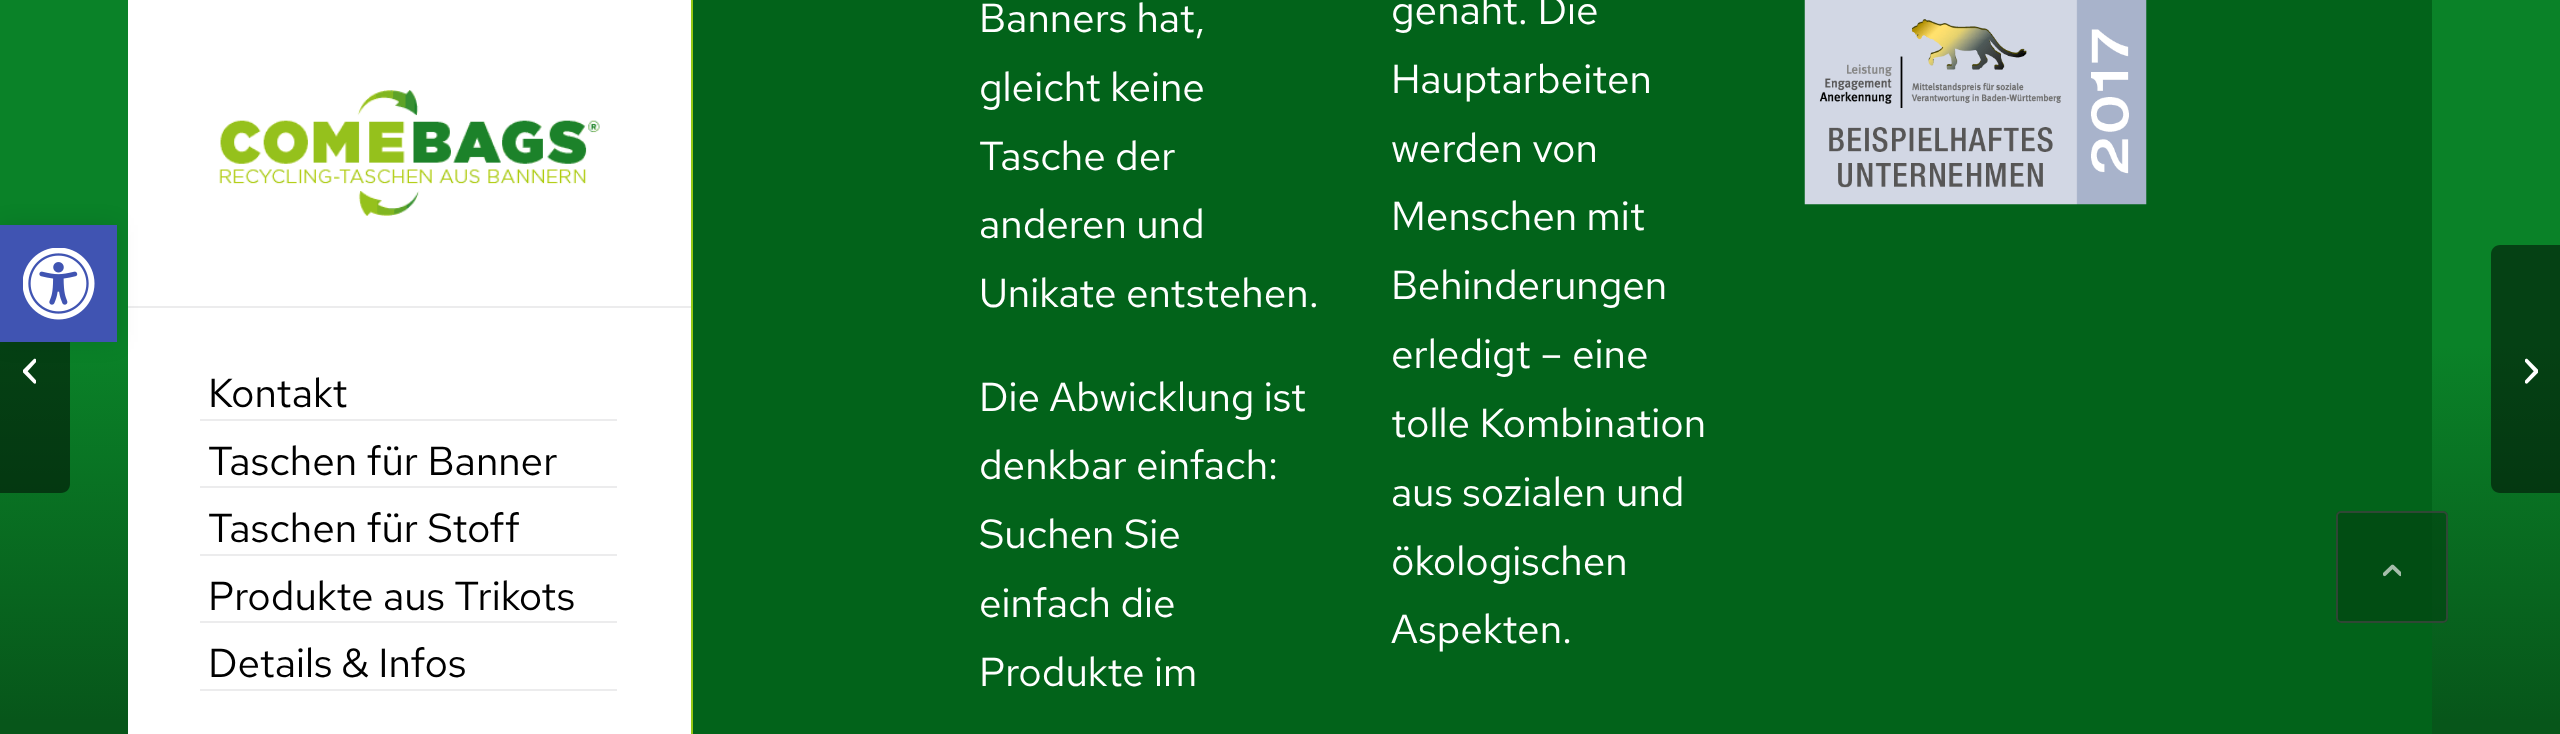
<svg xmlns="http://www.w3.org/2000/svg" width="2560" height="734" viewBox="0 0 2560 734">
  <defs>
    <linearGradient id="g1" gradientUnits="userSpaceOnUse" x1="1280" y1="0" x2="1280" y2="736"><stop offset="0.47" stop-color="rgb(10,130,40)"/><stop offset="0.98" stop-color="rgb(7,86,26)"/></linearGradient>
  </defs>
  <rect width="100%" height="100%" fill="rgb(255,255,255)"/>
  <rect x="0" y="0" width="2560" height="734" fill="url(#g1)"/>
  <rect x="128" y="0" width="563" height="734" fill="rgb(255,255,255)"/>
  <path d="M0 245H61C66 245 70 249 70 254V484C70 489 66 493 61 493H0Z" fill="rgba(0,0,0,0.5)"/>
  <image x="23" y="358" width="13" height="26" href="pic2.png"/>
  <rect x="128" y="306" width="563" height="2" fill="rgb(236,236,237)"/>
  <rect x="0" y="225" width="117" height="117" fill="rgba(0,0,0,0.1)" filter="blur(11px)"/>
  <rect x="0" y="225" width="117" height="117" fill="rgb(64,84,178)"/>
  <image x="23" y="248" width="72" height="72" href="pic1.png"/>
  <image x="219" y="90" width="381" height="126" href="pic3.png"/>
  <rect x="200" y="419" width="417" height="2" fill="rgb(236,236,237)"/>
  <text x="208" y="407" font-family="Red Hat Text" font-size="40.5" fill="rgb(0,0,0)">Kontakt</text>
  <rect x="200" y="486" width="417" height="2" fill="rgb(236,236,237)"/>
  <text x="208" y="475" font-family="Red Hat Text" font-size="40.5" fill="rgb(0,0,0)">Taschen für Banner</text>
  <rect x="200" y="554" width="417" height="2" fill="rgb(236,236,237)"/>
  <text x="208" y="542" font-family="Red Hat Text" font-size="40.5" fill="rgb(0,0,0)">Taschen für Stoff</text>
  <rect x="200" y="621" width="417" height="2" fill="rgb(236,236,237)"/>
  <text x="208" y="610" font-family="Red Hat Text" font-size="40.5" fill="rgb(0,0,0)">Produkte aus Trikots</text>
  <rect x="200" y="689" width="417" height="2" fill="rgb(236,236,237)"/>
  <text x="208" y="677" font-family="Red Hat Text" font-size="40.5" fill="rgb(0,0,0)">Details &amp; Infos</text>
  <rect x="691" y="0" width="2" height="734" fill="rgb(149,200,20)"/>
  <rect x="693" y="0" width="1739" height="734" fill="rgb(2,99,26)"/>
  <g font-family="Red Hat Text" font-size="40.5" fill="rgb(255,255,255)">
    <text>
      <tspan x="979" y="32">Banners hat,</tspan>
      <tspan x="979" y="101">gleicht keine</tspan>
      <tspan x="979" y="170">Tasche der</tspan>
      <tspan x="979" y="238">anderen und</tspan>
      <tspan x="979" y="307">Unikate entstehen.</tspan>
    </text>
    <text>
      <tspan x="979" y="411">Die Abwicklung ist</tspan>
      <tspan x="979" y="479">denkbar einfach:</tspan>
      <tspan x="979" y="548">Suchen Sie</tspan>
      <tspan x="979" y="617">einfach die</tspan>
      <tspan x="979" y="686">Produkte im</tspan>
    </text>
    <text>
      <tspan x="1391" y="24">genäht. Die</tspan>
      <tspan x="1391" y="93">Hauptarbeiten</tspan>
      <tspan x="1391" y="162">werden von</tspan>
      <tspan x="1391" y="230">Menschen mit</tspan>
      <tspan x="1391" y="299">Behinderungen</tspan>
      <tspan x="1391" y="368">erledigt – eine</tspan>
      <tspan x="1391" y="437">tolle Kombination</tspan>
      <tspan x="1391" y="506">aus sozialen und</tspan>
      <tspan x="1391" y="575">ökologischen</tspan>
      <tspan x="1391" y="643">Aspekten.</tspan>
    </text>
  </g>
  <image x="1804" y="0" width="343" height="205" href="pic4.png"/>
  <path d="M2500 245H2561V493H2500C2495 493 2491 489 2491 484V254C2491 249 2495 245 2500 245Z" fill="rgba(0,0,0,0.5)"/>
  <image x="2525" y="358" width="13" height="26" href="pic5.png"/>
  <rect x="2336" y="511" width="112" height="112" rx="5" fill="rgba(1,69,17,0.7)"/>
  <rect x="2337" y="512" width="110" height="110" rx="4" fill="none" stroke="rgba(68,68,68,0.7)" stroke-width="2"/>
  <image x="2383" y="564" width="18" height="13" href="pic6.png"/>
</svg>
